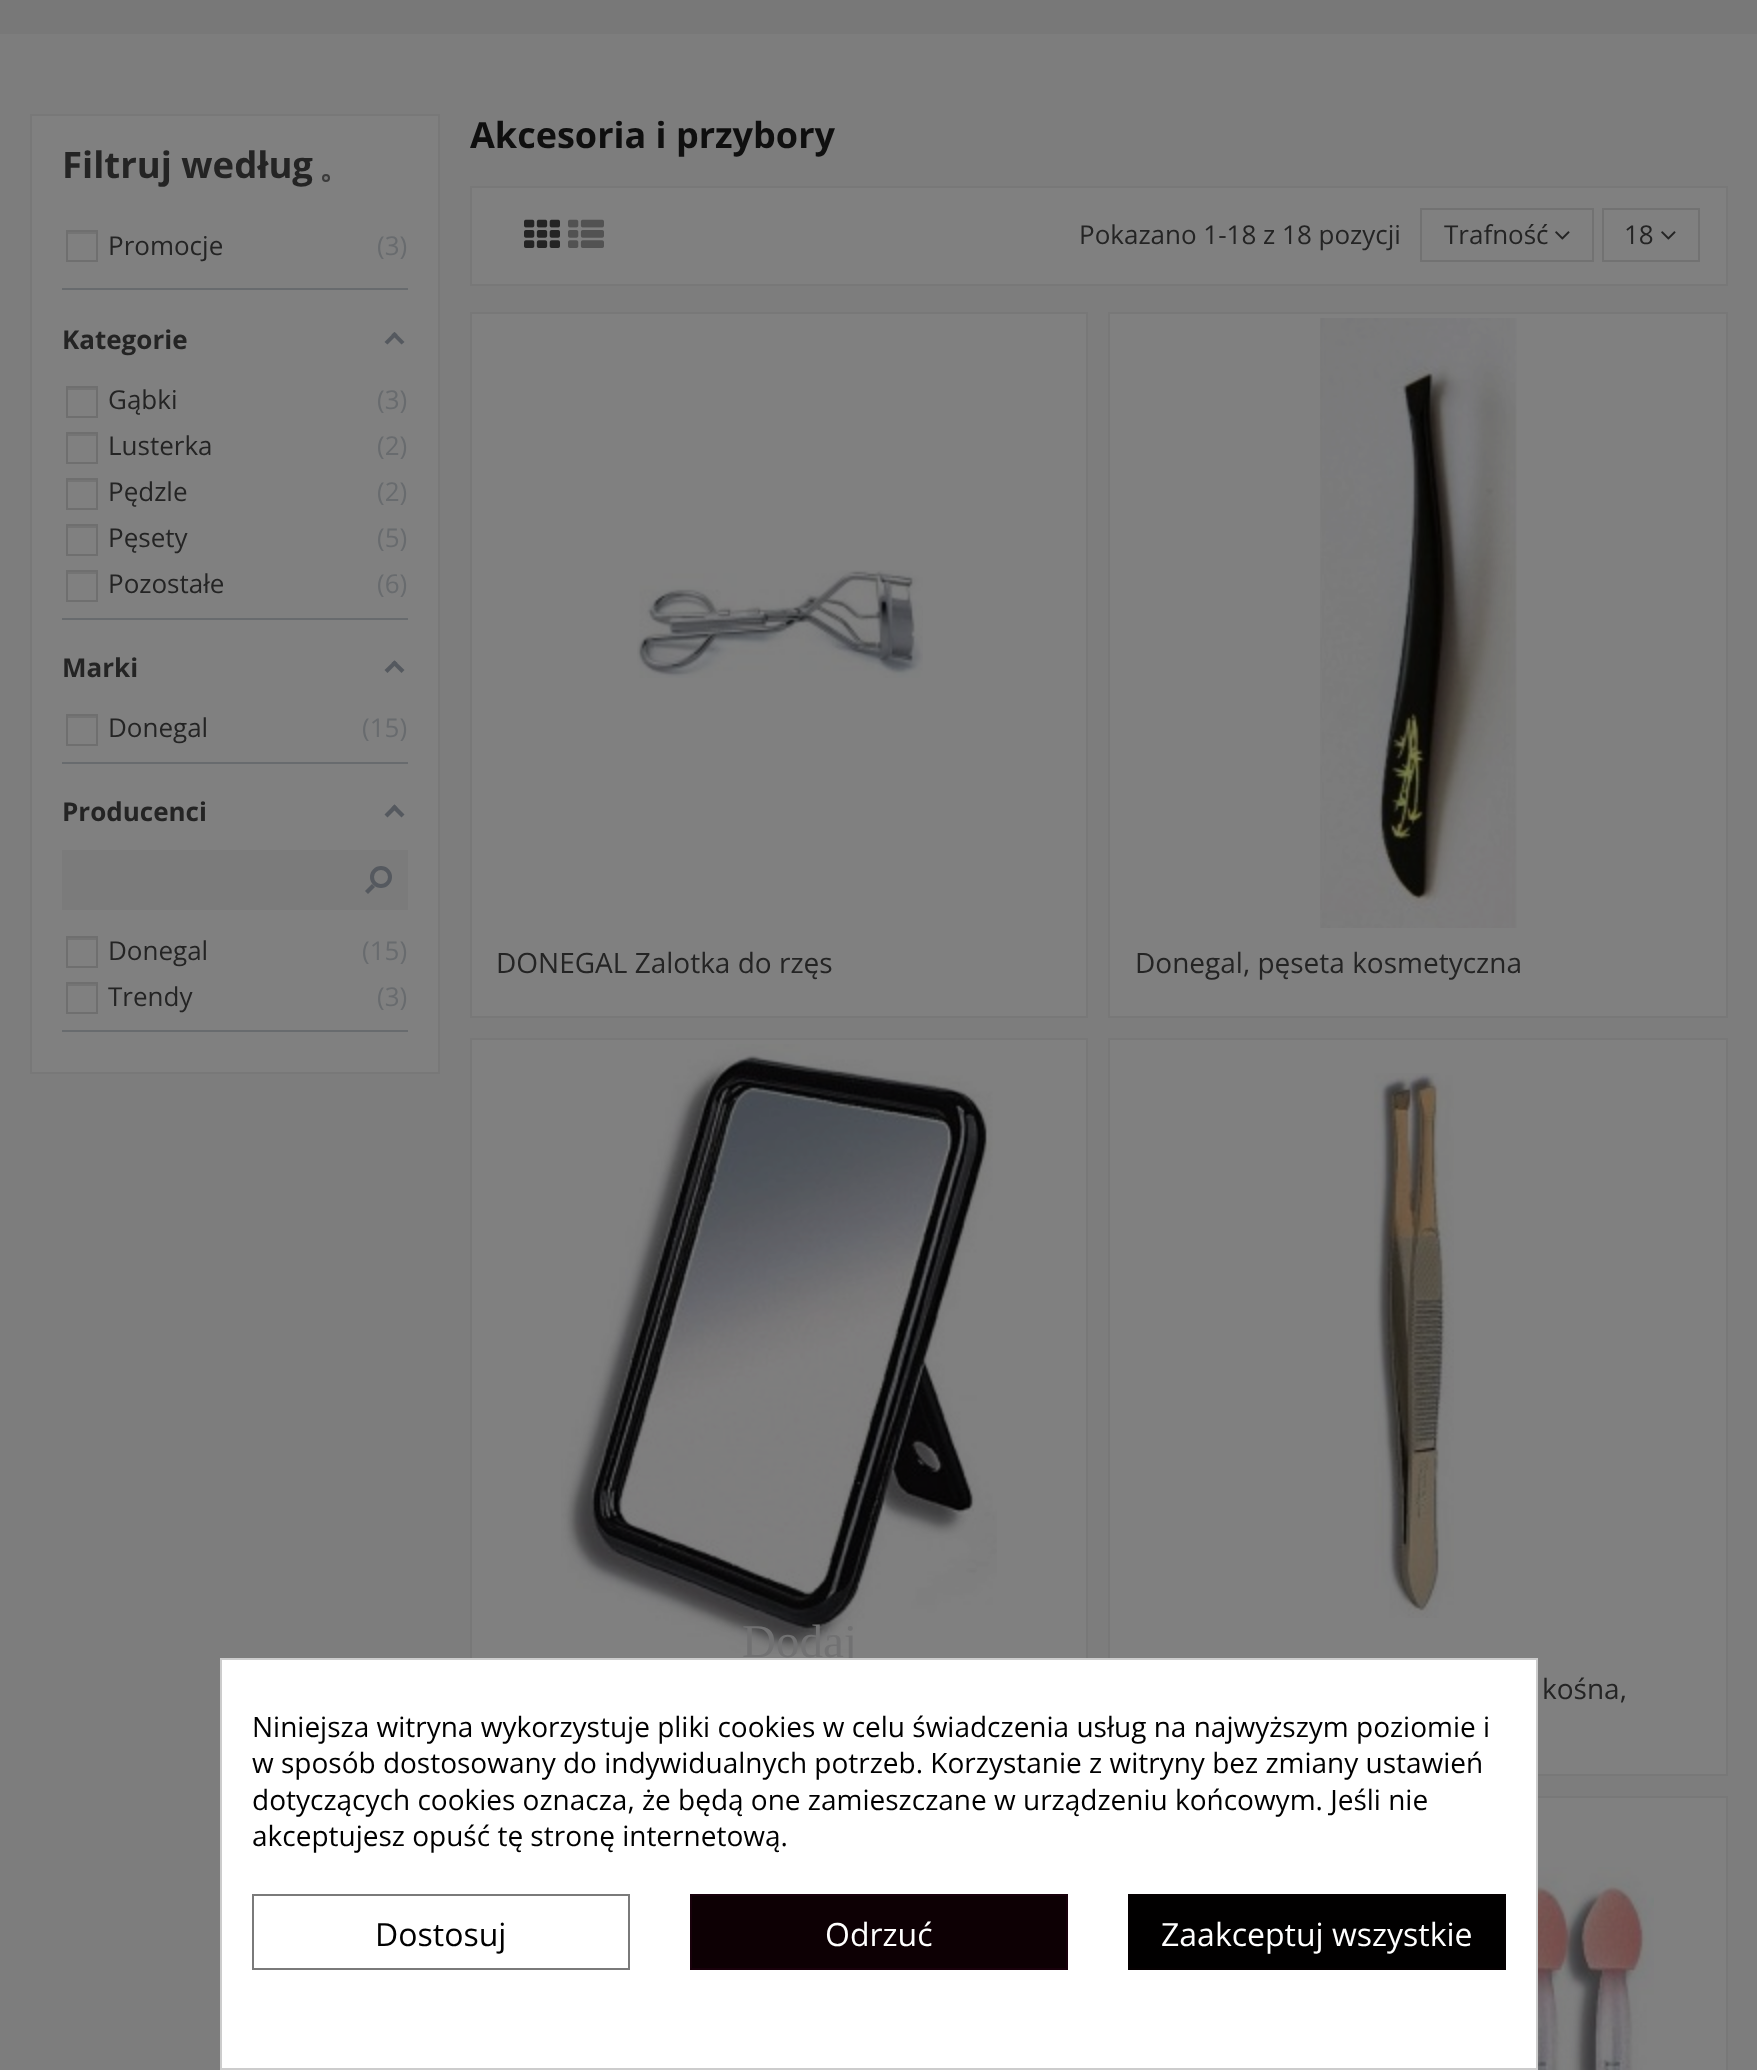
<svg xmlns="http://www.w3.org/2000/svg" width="1757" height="2070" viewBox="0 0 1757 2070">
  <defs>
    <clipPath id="clip1"><rect x="1444" y="216" width="104" height="40"/></clipPath>
  </defs>
  <rect width="100%" height="100%" fill="rgb(125,125,125)"/>
  <rect x="0" y="0" width="1757" height="34" fill="rgb(120,120,120)"/>
  <rect x="31" y="115" width="408" height="958" fill="rgb(128,128,128)" stroke="rgb(120,120,120)" stroke-width="2"/>
  <text x="62" y="178" font-family="Open Sans" font-size="36.5" font-weight="bold" fill="rgb(36,36,36)">Filtruj według</text>
  <circle cx="326" cy="178" r="3" fill="rgb(120,120,120)" stroke="rgb(59,59,59)" stroke-width="2"/>
  <rect x="62" y="288" width="346" height="2" fill="rgb(104,107,110)"/>
  <rect x="68" y="232" width="28" height="2" fill="rgb(116,116,116)"/>
  <rect x="67" y="231" width="30" height="30" fill="none" stroke="rgb(111,111,111)" stroke-width="2"/>
  <text x="108" y="255" font-family="Open Sans" font-size="26" fill="rgb(36,36,36)">Promocje</text>
  <text x="377" y="255" font-family="Open Sans" font-size="26" fill="rgb(104,107,110)">(3)</text>
  <rect x="62" y="618" width="346" height="2" fill="rgb(104,107,110)"/>
  <text x="62" y="349" font-family="Open Sans" font-size="26" font-weight="bold" fill="rgb(36,36,36)">Kategorie</text>
  <path d="M394.5 332L404.5 342L401.5 344.5L391.5 334.5Z" fill="rgb(85,89,95)"/>
  <path d="M394.5 332L397.5 334.5L387.5 344.5L384.5 342Z" fill="rgb(85,89,95)"/>
  <rect x="68" y="388" width="28" height="2" fill="rgb(116,116,116)"/>
  <rect x="67" y="387" width="30" height="30" fill="none" stroke="rgb(111,111,111)" stroke-width="2"/>
  <text x="108" y="409" font-family="Open Sans" font-size="26" fill="rgb(36,36,36)">Gąbki</text>
  <text x="377" y="409" font-family="Open Sans" font-size="26" fill="rgb(104,107,110)">(3)</text>
  <rect x="68" y="434" width="28" height="2" fill="rgb(116,116,116)"/>
  <rect x="67" y="433" width="30" height="30" fill="none" stroke="rgb(111,111,111)" stroke-width="2"/>
  <text x="108" y="455" font-family="Open Sans" font-size="26" fill="rgb(36,36,36)">Lusterka</text>
  <text x="377" y="455" font-family="Open Sans" font-size="26" fill="rgb(104,107,110)">(2)</text>
  <rect x="68" y="480" width="28" height="2" fill="rgb(116,116,116)"/>
  <rect x="67" y="479" width="30" height="30" fill="none" stroke="rgb(111,111,111)" stroke-width="2"/>
  <text x="108" y="501" font-family="Open Sans" font-size="26" fill="rgb(36,36,36)">Pędzle</text>
  <text x="377" y="501" font-family="Open Sans" font-size="26" fill="rgb(104,107,110)">(2)</text>
  <rect x="68" y="526" width="28" height="2" fill="rgb(116,116,116)"/>
  <rect x="67" y="525" width="30" height="30" fill="none" stroke="rgb(111,111,111)" stroke-width="2"/>
  <text x="108" y="547" font-family="Open Sans" font-size="26" fill="rgb(36,36,36)">Pęsety</text>
  <text x="377" y="547" font-family="Open Sans" font-size="26" fill="rgb(104,107,110)">(5)</text>
  <rect x="68" y="572" width="28" height="2" fill="rgb(116,116,116)"/>
  <rect x="67" y="571" width="30" height="30" fill="none" stroke="rgb(111,111,111)" stroke-width="2"/>
  <text x="108" y="593" font-family="Open Sans" font-size="26" fill="rgb(36,36,36)">Pozostałe</text>
  <text x="377" y="593" font-family="Open Sans" font-size="26" fill="rgb(104,107,110)">(6)</text>
  <rect x="62" y="762" width="346" height="2" fill="rgb(104,107,110)"/>
  <text x="62" y="677" font-family="Open Sans" font-size="26" font-weight="bold" fill="rgb(36,36,36)">Marki</text>
  <path d="M394.5 660.5L404.5 670L401.5 673L391.5 663Z" fill="rgb(85,89,95)"/>
  <path d="M394.5 660.5L397.5 663L387.5 673L384.5 670Z" fill="rgb(85,89,95)"/>
  <rect x="68" y="716" width="28" height="2" fill="rgb(116,116,116)"/>
  <rect x="67" y="715" width="30" height="30" fill="none" stroke="rgb(111,111,111)" stroke-width="2"/>
  <text x="108" y="737" font-family="Open Sans" font-size="26" fill="rgb(36,36,36)">Donegal</text>
  <text x="362" y="737" font-family="Open Sans" font-size="26" fill="rgb(104,107,110)">(15)</text>
  <rect x="62" y="1030" width="346" height="2" fill="rgb(104,107,110)"/>
  <text x="62" y="821" font-family="Open Sans" font-size="26" font-weight="bold" fill="rgb(36,36,36)">Producenci</text>
  <path d="M394.5 804.5L404.5 814.5L401.5 817.5L391.5 807.5Z" fill="rgb(85,89,95)"/>
  <path d="M394.5 804.5L397.5 807.5L387.5 817.5L384.5 814.5Z" fill="rgb(85,89,95)"/>
  <rect x="62" y="850" width="346" height="60" fill="rgb(123,123,123)"/>
  <circle cx="381" cy="877" r="9" fill="none" stroke="rgb(85,89,95)" stroke-width="4"/>
  <path d="M372 884L375 887L368 894L365 891Z" fill="rgb(85,89,95)"/>
  <rect x="68" y="938" width="28" height="2" fill="rgb(116,116,116)"/>
  <rect x="67" y="937" width="30" height="30" fill="none" stroke="rgb(111,111,111)" stroke-width="2"/>
  <text x="108" y="960" font-family="Open Sans" font-size="26" fill="rgb(36,36,36)">Donegal</text>
  <text x="362" y="960" font-family="Open Sans" font-size="26" fill="rgb(104,107,110)">(15)</text>
  <rect x="68" y="984" width="28" height="2" fill="rgb(116,116,116)"/>
  <rect x="67" y="983" width="30" height="30" fill="none" stroke="rgb(111,111,111)" stroke-width="2"/>
  <text x="108" y="1006" font-family="Open Sans" font-size="26" fill="rgb(36,36,36)">Trendy</text>
  <text x="377" y="1006" font-family="Open Sans" font-size="26" fill="rgb(104,107,110)">(3)</text>
  <text x="470" y="148" font-family="Open Sans" font-size="36" font-weight="bold" fill="rgb(15,15,15)">Akcesoria i przybory</text>
  <rect x="471" y="187" width="1256" height="98" fill="rgb(128,128,128)" stroke="rgb(120,120,120)" stroke-width="2"/>
  <image x="524" y="219" width="36" height="29" href="pic1.png"/>
  <image x="568" y="219" width="36" height="29" href="pic2.png"/>
  <text x="1079" y="244" font-family="Open Sans" font-size="26" fill="rgb(36,36,36)">Pokazano 1-18 z 18 pozycji</text>
  <rect x="1421" y="209" width="172" height="52" fill="none" stroke="rgb(114,114,114)" stroke-width="2"/>
  <g clip-path="url(#clip1)">
    <text x="1444" y="244" font-family="Open Sans" font-size="26" fill="rgb(36,36,36)">Trafność</text>
  </g>
  <image x="1555" y="231" width="15" height="9" href="pic3.png"/>
  <rect x="1603" y="209" width="96" height="52" fill="none" stroke="rgb(114,114,114)" stroke-width="2"/>
  <text x="1624" y="244" font-family="Open Sans" font-size="26" fill="rgb(36,36,36)">18</text>
  <image x="1661" y="231" width="15" height="9" href="pic3.png"/>
  <rect x="471" y="313" width="616" height="704" fill="rgb(128,128,128)" stroke="rgb(120,120,120)" stroke-width="2"/>
  <image x="637" y="570" width="286" height="108" href="pic4.png"/>
  <text x="496" y="973" font-family="Open Sans" font-size="28" fill="rgb(36,36,36)">DONEGAL Zalotka do rzęs</text>
  <rect x="1109" y="313" width="618" height="704" fill="rgb(128,128,128)" stroke="rgb(120,120,120)" stroke-width="2"/>
  <image x="1320" y="318" width="197" height="610" href="pic5.png"/>
  <text x="1135" y="973" font-family="Open Sans" font-size="28" fill="rgb(36,36,36)">Donegal, pęseta kosmetyczna</text>
  <rect x="472" y="1040" width="614" height="618" fill="rgb(128,128,128)"/>
  <rect x="471" y="1039" width="616" height="736" fill="none" stroke="rgb(120,120,120)" stroke-width="2"/>
  <image x="561" y="1044" width="436" height="610" href="pic6.png"/>
  <text x="742" y="1657" font-family="Liberation Serif" font-size="47" fill="rgb(113,113,114)">Dodaj</text>
  <rect x="1109" y="1039" width="618" height="736" fill="rgb(128,128,128)" stroke="rgb(120,120,120)" stroke-width="2"/>
  <image x="1374" y="1073" width="80" height="545" href="pic7.png"/>
  <text x="1542" y="1699" font-family="Open Sans" font-size="28" fill="rgb(36,36,36)">kośna,</text>
  <rect x="1538" y="1798" width="188" height="272" fill="rgb(128,128,128)"/>
  <rect x="1109" y="1797" width="618" height="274" fill="none" stroke="rgb(120,120,120)" stroke-width="2"/>
  <image x="1538" y="1867" width="116" height="203" href="pic8.png"/>
  <rect x="221" y="1659" width="1316" height="410" fill="rgb(255,255,255)" stroke="rgb(204,204,204)" stroke-width="2"/>
  <g font-family="Open Sans" font-size="28" fill="rgb(0,0,0)">
    <text>
      <tspan x="252" y="1737">Niniejsza witryna wykorzystuje pliki cookies w celu świadczenia usług na najwyższym poziomie i</tspan>
      <tspan x="252" y="1773">w sposób dostosowany do indywidualnych potrzeb. Korzystanie z witryny bez zmiany ustawień</tspan>
      <tspan x="252" y="1810">dotyczących cookies oznacza, że będą one zamieszczane w urządzeniu końcowym. Jeśli nie</tspan>
      <tspan x="252" y="1846">akceptujesz opuść tę stronę internetową.</tspan>
    </text>
  </g>
  <rect x="253" y="1895" width="376" height="74" fill="none" stroke="rgb(122,122,122)" stroke-width="2"/>
  <text x="375" y="1946" font-family="Open Sans" font-size="32" fill="rgb(0,0,0)">Dostosuj</text>
  <rect x="691" y="1895" width="376" height="74" fill="rgb(13,0,4)" stroke="rgb(24,0,11)" stroke-width="2"/>
  <text x="825" y="1946" font-family="Open Sans" font-size="32" fill="rgb(255,255,255)">Odrzuć</text>
  <rect x="1129" y="1895" width="376" height="74" fill="rgb(1,0,0)" stroke="rgb(5,0,1)" stroke-width="2"/>
  <text x="1161" y="1946" font-family="Open Sans" font-size="32" fill="rgb(255,255,255)">Zaakceptuj wszystkie</text>
</svg>
